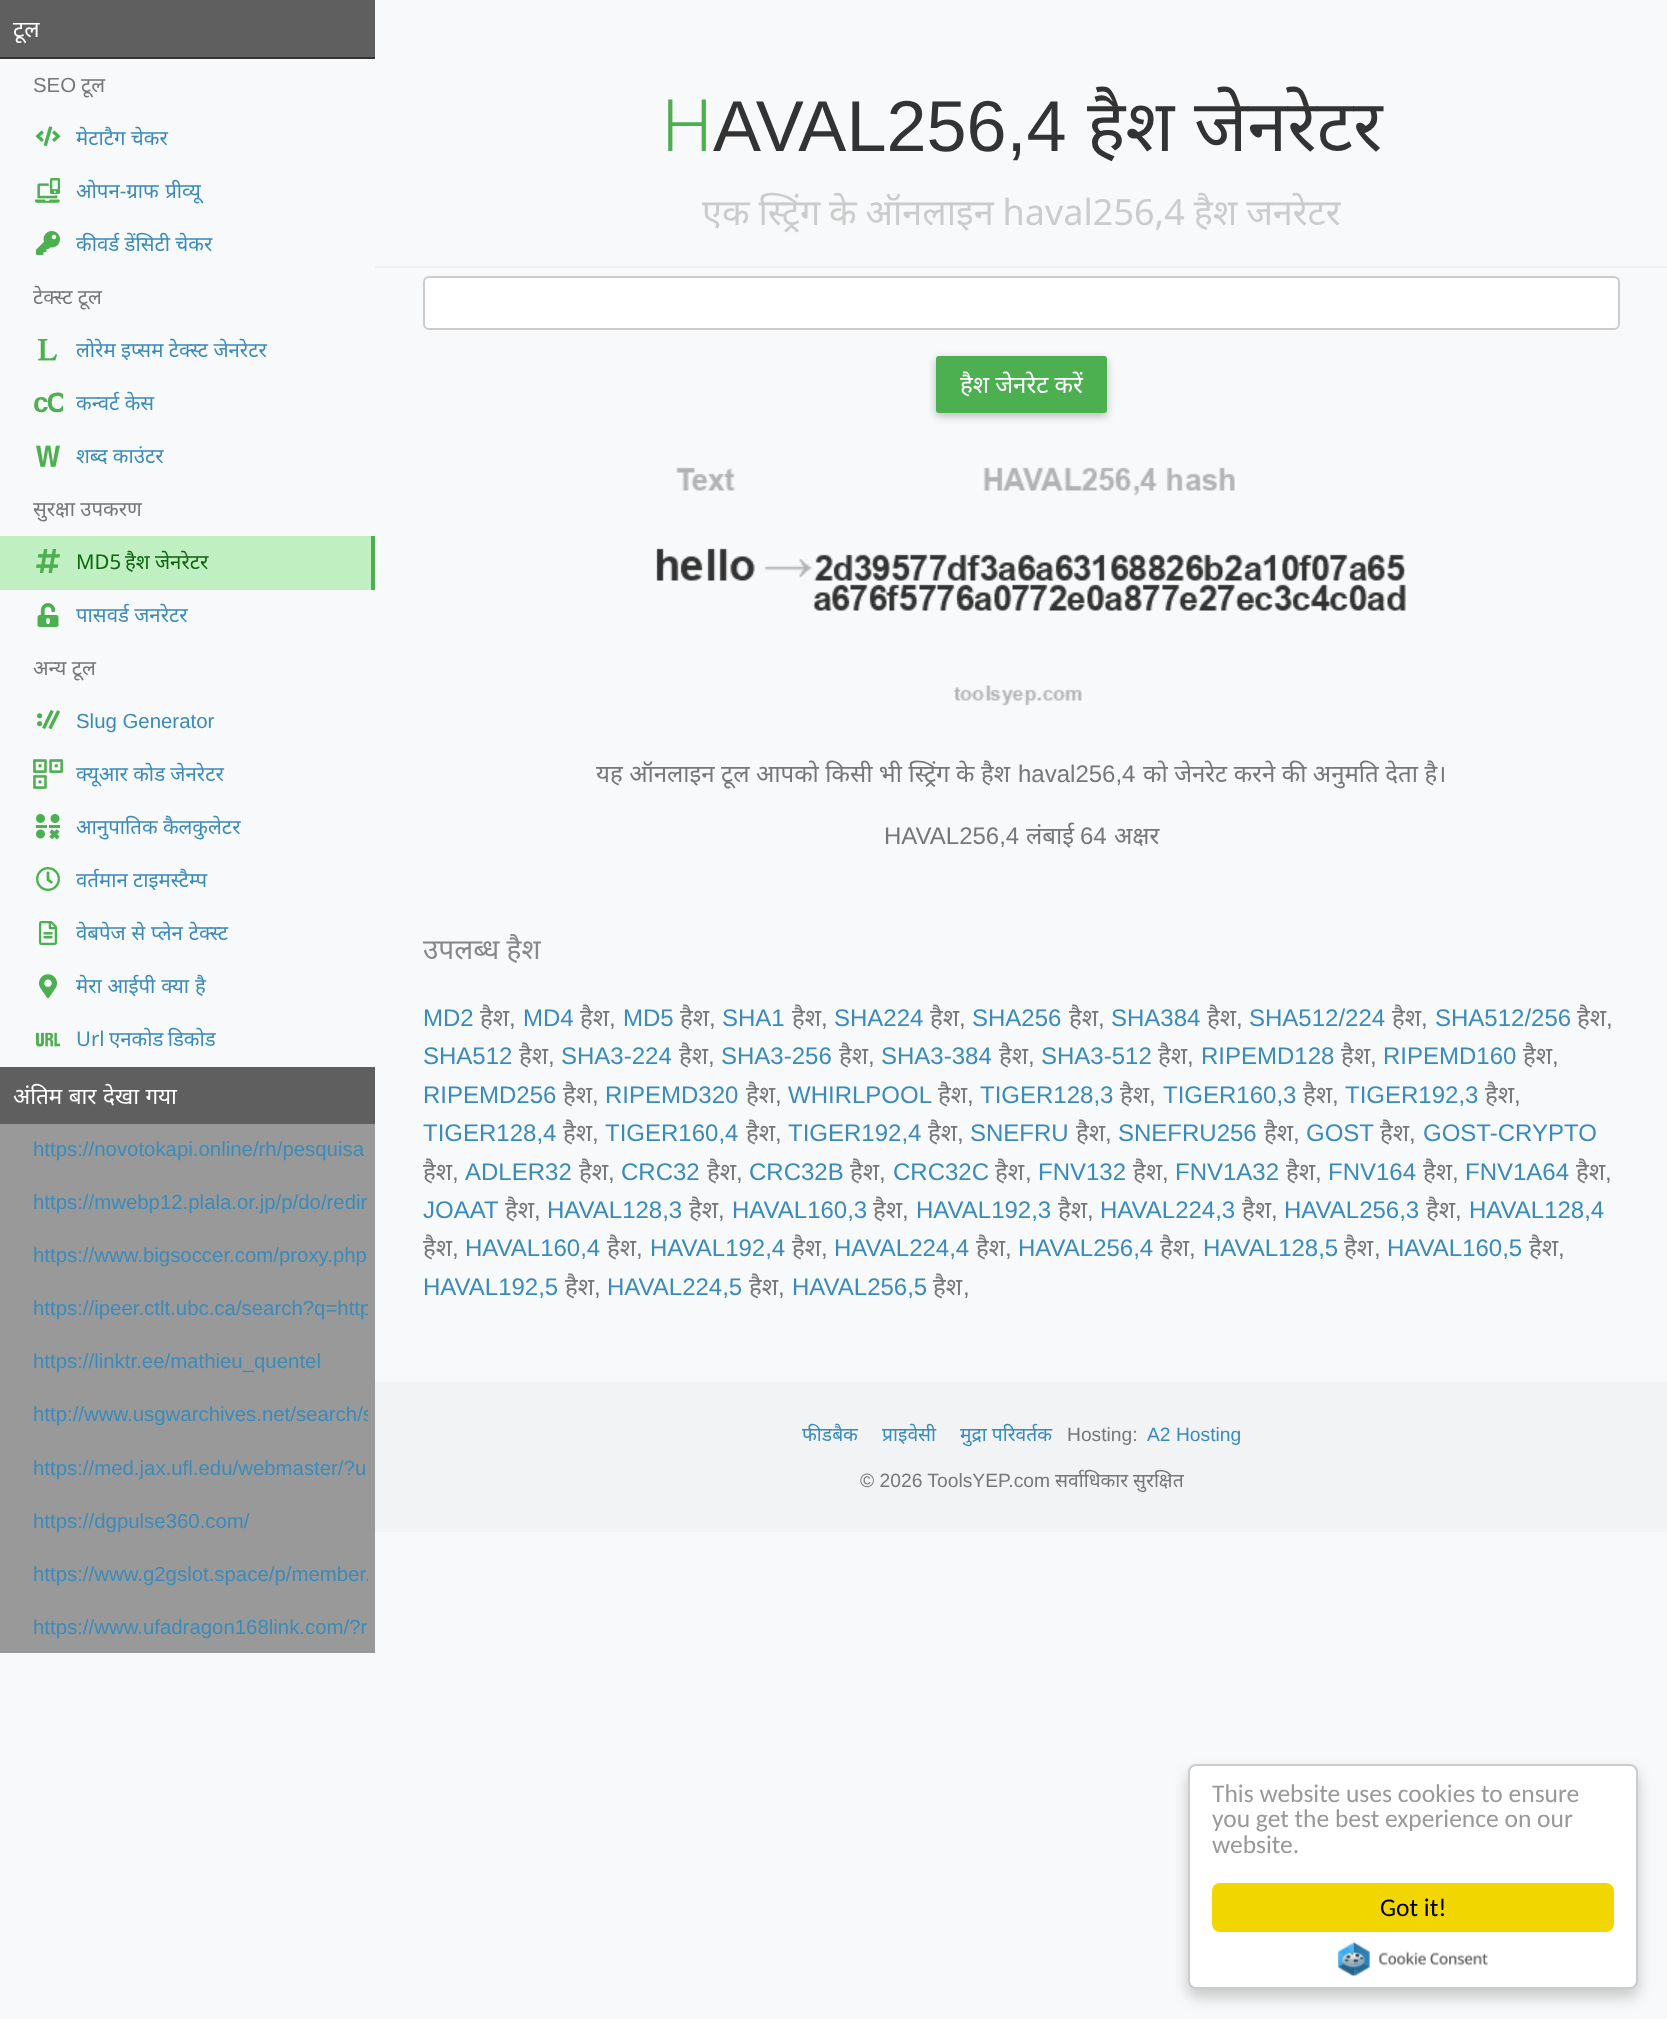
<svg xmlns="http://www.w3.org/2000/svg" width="1667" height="2019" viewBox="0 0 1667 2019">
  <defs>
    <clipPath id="clip1"><rect x="33" y="387" width="30" height="30"/></clipPath>
    <clipPath id="clip2"><rect x="21" y="1283" width="347" height="52"/></clipPath>
    <clipPath id="clip3"><rect x="21" y="1389" width="347" height="53"/></clipPath>
    <clipPath id="clip4"><rect x="21" y="1548" width="347" height="53"/></clipPath>
  </defs>
  <rect width="100%" height="100%" fill="rgb(248,249,250)"/>
  <rect x="0" y="0" width="375" height="57" fill="rgb(95,95,95)"/>
  <text x="13" y="37" font-family="Noto Sans" font-size="22.5" fill="rgb(255,255,255)">टूल</text>
  <rect x="0" y="57" width="375" height="2" fill="rgb(51,51,51)"/>
  <text x="33" y="92" font-family="Liberation Sans" font-size="20.4" fill="rgb(119,119,119)">SEO</text>
  <text x="81" y="92" font-family="Noto Sans" font-size="20.4" fill="rgb(119,119,119)">टूल</text>
  <image x="35" y="126" width="26" height="21" href="pic1.png"/>
  <text x="76" y="145" font-family="Noto Sans" font-size="20.4" fill="rgb(59,139,186)">मेटाटैग चेकर</text>
  <image x="34" y="178" width="26" height="25" href="pic2.png"/>
  <text x="76" y="198" word-spacing="1" font-family="Noto Sans" font-size="20.4" fill="rgb(59,139,186)">ओपन-ग्राफ प्रीव्यू</text>
  <image x="36" y="231" width="24" height="24" href="pic3.png"/>
  <text x="76" y="251" font-family="Noto Sans" font-size="20.4" fill="rgb(59,139,186)">कीवर्ड डेंसिटी चेकर</text>
  <text x="33" y="304" font-family="Noto Sans" font-size="20.4" fill="rgb(119,119,119)">टेक्स्ट टूल</text>
  <image x="38" y="339" width="19" height="22" href="pic4.png"/>
  <text x="76" y="357" font-family="Noto Sans" font-size="20.4" fill="rgb(59,139,186)">लोरेम इप्सम टेक्स्ट जेनरेटर</text>
  <g clip-path="url(#clip1)">
    <text x="33" y="412" font-family="Liberation Sans" font-size="28" font-weight="bold" letter-spacing="-2" fill="rgb(76,175,80)">cC</text>
  </g>
  <text x="76" y="410" font-family="Noto Sans" font-size="20.4" fill="rgb(59,139,186)">कन्वर्ट केस</text>
  <image x="36" y="445" width="24" height="22" href="pic5.png"/>
  <text x="76" y="463" font-family="Noto Sans" font-size="20.4" fill="rgb(59,139,186)">शब्द काउंटर</text>
  <text x="33" y="516" font-family="Noto Sans" font-size="20.4" fill="rgb(119,119,119)">सुरक्षा उपकरण</text>
  <rect x="0" y="536" width="371" height="54" fill="rgb(192,239,194)"/>
  <rect x="371" y="536" width="4" height="54" fill="rgb(76,175,80)"/>
  <image x="36" y="549" width="24" height="24" href="pic6.png"/>
  <g font-family="Noto Sans" font-size="20.4" fill="rgb(13,101,15)">
    <text x="76" y="569">MD5</text>
    <text x="125" y="569">हैश जेनरेटर</text>
  </g>
  <image x="37" y="603" width="22" height="24" href="pic7.png"/>
  <text x="76" y="622" font-family="Noto Sans" font-size="20.4" fill="rgb(59,139,186)">पासवर्ड जनरेटर</text>
  <text x="33" y="675" font-family="Noto Sans" font-size="20.4" fill="rgb(119,119,119)">अन्य टूल</text>
  <image x="37" y="710" width="23" height="20" href="pic8.png"/>
  <text x="76" y="728" font-family="Liberation Sans" font-size="20.4" fill="rgb(59,139,186)">Slug Generator</text>
  <image x="33" y="759" width="30" height="30" href="pic9.png"/>
  <text x="76" y="781" font-family="Noto Sans" font-size="20.4" fill="rgb(59,139,186)">क्यूआर कोड जेनरेटर</text>
  <image x="36" y="814" width="24" height="26" href="pic10.png"/>
  <text x="76" y="834" font-family="Noto Sans" font-size="20.4" fill="rgb(59,139,186)">आनुपातिक कैलकुलेटर</text>
  <image x="36" y="867" width="24" height="24" href="pic11.png"/>
  <text x="76" y="887" font-family="Noto Sans" font-size="20.4" fill="rgb(59,139,186)">वर्तमान टाइमस्टैम्प</text>
  <image x="39" y="921" width="18" height="24" href="pic12.png"/>
  <text x="76" y="940" word-spacing="0.5" font-family="Noto Sans" font-size="20.4" fill="rgb(59,139,186)">वेबपेज से प्लेन टेक्स्ट</text>
  <image x="39" y="974" width="18" height="25" href="pic13.png"/>
  <text x="76" y="993" word-spacing="0.5" font-family="Noto Sans" font-size="20.4" fill="rgb(59,139,186)">मेरा आईपी क्या है</text>
  <image x="36" y="1032" width="24" height="15" href="pic14.png"/>
  <text x="76" y="1046" word-spacing="-1" font-family="Noto Sans" font-size="20.4" fill="rgb(59,139,186)">Url एनकोड डिकोड</text>
  <rect x="0" y="1067" width="375" height="57" fill="rgb(95,95,95)"/>
  <text x="13" y="1104" word-spacing="0.5" font-family="Noto Sans" font-size="22.5" fill="rgb(255,255,255)">अंतिम बार देखा गया</text>
  <rect x="0" y="1124" width="375" height="529" fill="rgb(153,153,153)"/>
  <g font-family="Liberation Sans" font-size="20.4" fill="rgb(59,139,186)">
    <text x="33" y="1156">https://novotokapi.online/rh/pesquisa</text>
    <text x="33" y="1209">https://mwebp12.plala.or.jp/p/do/redir</text>
    <text x="33" y="1262">https://www.bigsoccer.com/proxy.php</text>
  </g>
  <g clip-path="url(#clip2)">
    <text x="33" y="1315" font-family="Liberation Sans" font-size="20.4" fill="rgb(59,139,186)">https://ipeer.ctlt.ubc.ca/search?q=http</text>
  </g>
  <text x="33" y="1368" font-family="Liberation Sans" font-size="20.4" fill="rgb(59,139,186)">https://linktr.ee/mathieu_quentel</text>
  <g clip-path="url(#clip3)">
    <text x="33" y="1421" font-family="Liberation Sans" font-size="20.4" fill="rgb(59,139,186)">http://www.usgwarchives.net/search/s</text>
  </g>
  <g font-family="Liberation Sans" font-size="20.4" fill="rgb(59,139,186)">
    <text x="33" y="1475">https://med.jax.ufl.edu/webmaster/?u</text>
    <text x="33" y="1528">https://dgpulse360.com/</text>
  </g>
  <g clip-path="url(#clip4)">
    <text x="33" y="1581" font-family="Liberation Sans" font-size="20.4" fill="rgb(59,139,186)">https://www.g2gslot.space/p/member.</text>
  </g>
  <text x="33" y="1634" font-family="Liberation Sans" font-size="20.4" fill="rgb(59,139,186)">https://www.ufadragon168link.com/?r</text>
  <rect x="375" y="266" width="1292" height="2" fill="rgb(238,238,238)"/>
  <text x="661" y="151" font-family="Noto Sans" font-size="72" font-weight="300" fill="rgb(76,175,80)">H</text>
  <text x="713" y="151" font-family="Liberation Sans" font-size="72" fill="rgb(51,51,51)">AVAL256,4</text>
  <text x="1087" y="151" word-spacing="1" font-family="Noto Sans" font-size="72" fill="rgb(51,51,51)">हैश जेनरेटर</text>
  <text x="702" y="225" word-spacing="-0.5" font-family="Noto Sans" font-size="36" fill="rgb(204,204,204)">एक स्ट्रिंग के ऑनलाइन haval256,4 हैश जनरेटर</text>
  <rect x="424" y="277" width="1195" height="52" rx="5" fill="rgb(255,255,255)" stroke="rgb(204,204,204)" stroke-width="2"/>
  <rect x="936" y="359" width="171" height="57" rx="3" fill="rgba(0,0,0,0.26)" filter="blur(4px)"/>
  <rect x="936" y="356" width="171" height="57" rx="3" fill="rgb(76,175,80)"/>
  <text x="960" y="393" font-family="Noto Sans" font-size="24" fill="rgb(255,255,255)">हैश जेनरेट करें</text>
  <image x="656" y="467" width="750" height="239" href="pic15.png"/>
  <text x="596" y="782" word-spacing="0.25" font-family="Noto Sans" font-size="24" fill="rgb(119,119,119)">यह ऑनलाइन टूल आपको किसी भी स्ट्रिंग के हैश</text>
  <text x="1018" y="782" font-family="Liberation Sans" font-size="24" fill="rgb(119,119,119)">haval256,4</text>
  <text x="1143" y="782" word-spacing="0.25" font-family="Noto Sans" font-size="24" fill="rgb(119,119,119)">को जेनरेट करने की अनुमति देता है।</text>
  <text x="884" y="844" font-family="Liberation Sans" font-size="24" fill="rgb(119,119,119)">HAVAL256,4</text>
  <text x="1026" y="844" font-family="Noto Sans" font-size="24" fill="rgb(119,119,119)">लंबाई</text>
  <text x="1080" y="844" font-family="Liberation Sans" font-size="24" fill="rgb(119,119,119)">64</text>
  <text x="1114" y="844" font-family="Noto Sans" font-size="24" fill="rgb(119,119,119)">अक्षर</text>
  <text x="423" y="959" font-family="Noto Sans" font-size="28" fill="rgb(136,136,136)">उपलब्ध हैश</text>
  <text x="423" y="1026" font-family="Liberation Sans" font-size="24" fill="rgb(59,139,186)">MD2</text>
  <text x="480" y="1026" font-family="Noto Sans" font-size="24" fill="rgb(119,119,119)">हैश</text>
  <text x="509" y="1026" font-family="Liberation Sans" font-size="24" fill="rgb(119,119,119)">,</text>
  <text x="523" y="1026" font-family="Liberation Sans" font-size="24" fill="rgb(59,139,186)">MD4</text>
  <text x="580" y="1026" font-family="Noto Sans" font-size="24" fill="rgb(119,119,119)">हैश</text>
  <text x="609" y="1026" font-family="Liberation Sans" font-size="24" fill="rgb(119,119,119)">,</text>
  <text x="623" y="1026" font-family="Liberation Sans" font-size="24" fill="rgb(59,139,186)">MD5</text>
  <text x="680" y="1026" font-family="Noto Sans" font-size="24" fill="rgb(119,119,119)">हैश</text>
  <text x="709" y="1026" font-family="Liberation Sans" font-size="24" fill="rgb(119,119,119)">,</text>
  <text x="722" y="1026" font-family="Liberation Sans" font-size="24" fill="rgb(59,139,186)">SHA1</text>
  <text x="792" y="1026" font-family="Noto Sans" font-size="24" fill="rgb(119,119,119)">हैश</text>
  <text x="821" y="1026" font-family="Liberation Sans" font-size="24" fill="rgb(119,119,119)">,</text>
  <text x="834" y="1026" font-family="Liberation Sans" font-size="24" fill="rgb(59,139,186)">SHA224</text>
  <text x="930" y="1026" font-family="Noto Sans" font-size="24" fill="rgb(119,119,119)">हैश</text>
  <text x="959" y="1026" font-family="Liberation Sans" font-size="24" fill="rgb(119,119,119)">,</text>
  <text x="972" y="1026" font-family="Liberation Sans" font-size="24" fill="rgb(59,139,186)">SHA256</text>
  <text x="1069" y="1026" font-family="Noto Sans" font-size="24" fill="rgb(119,119,119)">हैश</text>
  <text x="1098" y="1026" font-family="Liberation Sans" font-size="24" fill="rgb(119,119,119)">,</text>
  <text x="1111" y="1026" font-family="Liberation Sans" font-size="24" fill="rgb(59,139,186)">SHA384</text>
  <text x="1207" y="1026" font-family="Noto Sans" font-size="24" fill="rgb(119,119,119)">हैश</text>
  <text x="1236" y="1026" font-family="Liberation Sans" font-size="24" fill="rgb(119,119,119)">,</text>
  <text x="1249" y="1026" font-family="Liberation Sans" font-size="24" fill="rgb(59,139,186)">SHA512/224</text>
  <text x="1392" y="1026" font-family="Noto Sans" font-size="24" fill="rgb(119,119,119)">हैश</text>
  <text x="1421" y="1026" font-family="Liberation Sans" font-size="24" fill="rgb(119,119,119)">,</text>
  <text x="1435" y="1026" font-family="Liberation Sans" font-size="24" fill="rgb(59,139,186)">SHA512/256</text>
  <text x="1577" y="1026" font-family="Noto Sans" font-size="24" fill="rgb(119,119,119)">हैश</text>
  <text x="1606" y="1026" font-family="Liberation Sans" font-size="24" fill="rgb(119,119,119)">,</text>
  <text x="423" y="1064" font-family="Liberation Sans" font-size="24" fill="rgb(59,139,186)">SHA512</text>
  <text x="519" y="1064" font-family="Noto Sans" font-size="24" fill="rgb(119,119,119)">हैश</text>
  <text x="548" y="1064" font-family="Liberation Sans" font-size="24" fill="rgb(119,119,119)">,</text>
  <text x="561" y="1064" font-family="Liberation Sans" font-size="24" fill="rgb(59,139,186)">SHA3-224</text>
  <text x="679" y="1064" font-family="Noto Sans" font-size="24" fill="rgb(119,119,119)">हैश</text>
  <text x="708" y="1064" font-family="Liberation Sans" font-size="24" fill="rgb(119,119,119)">,</text>
  <text x="721" y="1064" font-family="Liberation Sans" font-size="24" fill="rgb(59,139,186)">SHA3-256</text>
  <text x="839" y="1064" font-family="Noto Sans" font-size="24" fill="rgb(119,119,119)">हैश</text>
  <text x="868" y="1064" font-family="Liberation Sans" font-size="24" fill="rgb(119,119,119)">,</text>
  <text x="881" y="1064" font-family="Liberation Sans" font-size="24" fill="rgb(59,139,186)">SHA3-384</text>
  <text x="999" y="1064" font-family="Noto Sans" font-size="24" fill="rgb(119,119,119)">हैश</text>
  <text x="1028" y="1064" font-family="Liberation Sans" font-size="24" fill="rgb(119,119,119)">,</text>
  <text x="1041" y="1064" font-family="Liberation Sans" font-size="24" fill="rgb(59,139,186)">SHA3-512</text>
  <text x="1158" y="1064" font-family="Noto Sans" font-size="24" fill="rgb(119,119,119)">हैश</text>
  <text x="1187" y="1064" font-family="Liberation Sans" font-size="24" fill="rgb(119,119,119)">,</text>
  <text x="1201" y="1064" font-family="Liberation Sans" font-size="24" fill="rgb(59,139,186)">RIPEMD128</text>
  <text x="1341" y="1064" font-family="Noto Sans" font-size="24" fill="rgb(119,119,119)">हैश</text>
  <text x="1370" y="1064" font-family="Liberation Sans" font-size="24" fill="rgb(119,119,119)">,</text>
  <text x="1383" y="1064" font-family="Liberation Sans" font-size="24" fill="rgb(59,139,186)">RIPEMD160</text>
  <text x="1523" y="1064" font-family="Noto Sans" font-size="24" fill="rgb(119,119,119)">हैश</text>
  <text x="1552" y="1064" font-family="Liberation Sans" font-size="24" fill="rgb(119,119,119)">,</text>
  <text x="423" y="1103" font-family="Liberation Sans" font-size="24" fill="rgb(59,139,186)">RIPEMD256</text>
  <text x="563" y="1103" font-family="Noto Sans" font-size="24" fill="rgb(119,119,119)">हैश</text>
  <text x="592" y="1103" font-family="Liberation Sans" font-size="24" fill="rgb(119,119,119)">,</text>
  <text x="605" y="1103" font-family="Liberation Sans" font-size="24" fill="rgb(59,139,186)">RIPEMD320</text>
  <text x="746" y="1103" font-family="Noto Sans" font-size="24" fill="rgb(119,119,119)">हैश</text>
  <text x="775" y="1103" font-family="Liberation Sans" font-size="24" fill="rgb(119,119,119)">,</text>
  <text x="788" y="1103" font-family="Liberation Sans" font-size="24" fill="rgb(59,139,186)">WHIRLPOOL</text>
  <text x="938" y="1103" font-family="Noto Sans" font-size="24" fill="rgb(119,119,119)">हैश</text>
  <text x="967" y="1103" font-family="Liberation Sans" font-size="24" fill="rgb(119,119,119)">,</text>
  <text x="980" y="1103" font-family="Liberation Sans" font-size="24" fill="rgb(59,139,186)">TIGER128,3</text>
  <text x="1120" y="1103" font-family="Noto Sans" font-size="24" fill="rgb(119,119,119)">हैश</text>
  <text x="1149" y="1103" font-family="Liberation Sans" font-size="24" fill="rgb(119,119,119)">,</text>
  <text x="1163" y="1103" font-family="Liberation Sans" font-size="24" fill="rgb(59,139,186)">TIGER160,3</text>
  <text x="1303" y="1103" font-family="Noto Sans" font-size="24" fill="rgb(119,119,119)">हैश</text>
  <text x="1332" y="1103" font-family="Liberation Sans" font-size="24" fill="rgb(119,119,119)">,</text>
  <text x="1345" y="1103" font-family="Liberation Sans" font-size="24" fill="rgb(59,139,186)">TIGER192,3</text>
  <text x="1485" y="1103" font-family="Noto Sans" font-size="24" fill="rgb(119,119,119)">हैश</text>
  <text x="1514" y="1103" font-family="Liberation Sans" font-size="24" fill="rgb(119,119,119)">,</text>
  <text x="423" y="1141" font-family="Liberation Sans" font-size="24" fill="rgb(59,139,186)">TIGER128,4</text>
  <text x="563" y="1141" font-family="Noto Sans" font-size="24" fill="rgb(119,119,119)">हैश</text>
  <text x="592" y="1141" font-family="Liberation Sans" font-size="24" fill="rgb(119,119,119)">,</text>
  <text x="605" y="1141" font-family="Liberation Sans" font-size="24" fill="rgb(59,139,186)">TIGER160,4</text>
  <text x="746" y="1141" font-family="Noto Sans" font-size="24" fill="rgb(119,119,119)">हैश</text>
  <text x="775" y="1141" font-family="Liberation Sans" font-size="24" fill="rgb(119,119,119)">,</text>
  <text x="788" y="1141" font-family="Liberation Sans" font-size="24" fill="rgb(59,139,186)">TIGER192,4</text>
  <text x="928" y="1141" font-family="Noto Sans" font-size="24" fill="rgb(119,119,119)">हैश</text>
  <text x="957" y="1141" font-family="Liberation Sans" font-size="24" fill="rgb(119,119,119)">,</text>
  <text x="970" y="1141" font-family="Liberation Sans" font-size="24" fill="rgb(59,139,186)">SNEFRU</text>
  <text x="1076" y="1141" font-family="Noto Sans" font-size="24" fill="rgb(119,119,119)">हैश</text>
  <text x="1105" y="1141" font-family="Liberation Sans" font-size="24" fill="rgb(119,119,119)">,</text>
  <text x="1118" y="1141" font-family="Liberation Sans" font-size="24" fill="rgb(59,139,186)">SNEFRU256</text>
  <text x="1264" y="1141" font-family="Noto Sans" font-size="24" fill="rgb(119,119,119)">हैश</text>
  <text x="1293" y="1141" font-family="Liberation Sans" font-size="24" fill="rgb(119,119,119)">,</text>
  <text x="1306" y="1141" font-family="Liberation Sans" font-size="24" fill="rgb(59,139,186)">GOST</text>
  <text x="1380" y="1141" font-family="Noto Sans" font-size="24" fill="rgb(119,119,119)">हैश</text>
  <text x="1409" y="1141" font-family="Liberation Sans" font-size="24" fill="rgb(119,119,119)">,</text>
  <text x="1423" y="1141" font-family="Liberation Sans" font-size="24" fill="rgb(59,139,186)">GOST-CRYPTO</text>
  <text x="423" y="1180" font-family="Noto Sans" font-size="24" fill="rgb(119,119,119)">हैश</text>
  <text x="452" y="1180" font-family="Liberation Sans" font-size="24" fill="rgb(119,119,119)">,</text>
  <text x="465" y="1180" font-family="Liberation Sans" font-size="24" fill="rgb(59,139,186)">ADLER32</text>
  <text x="579" y="1180" font-family="Noto Sans" font-size="24" fill="rgb(119,119,119)">हैश</text>
  <text x="608" y="1180" font-family="Liberation Sans" font-size="24" fill="rgb(119,119,119)">,</text>
  <text x="621" y="1180" font-family="Liberation Sans" font-size="24" fill="rgb(59,139,186)">CRC32</text>
  <text x="707" y="1180" font-family="Noto Sans" font-size="24" fill="rgb(119,119,119)">हैश</text>
  <text x="736" y="1180" font-family="Liberation Sans" font-size="24" fill="rgb(119,119,119)">,</text>
  <text x="749" y="1180" font-family="Liberation Sans" font-size="24" fill="rgb(59,139,186)">CRC32B</text>
  <text x="850" y="1180" font-family="Noto Sans" font-size="24" fill="rgb(119,119,119)">हैश</text>
  <text x="879" y="1180" font-family="Liberation Sans" font-size="24" fill="rgb(119,119,119)">,</text>
  <text x="893" y="1180" font-family="Liberation Sans" font-size="24" fill="rgb(59,139,186)">CRC32C</text>
  <text x="995" y="1180" font-family="Noto Sans" font-size="24" fill="rgb(119,119,119)">हैश</text>
  <text x="1025" y="1180" font-family="Liberation Sans" font-size="24" fill="rgb(119,119,119)">,</text>
  <text x="1038" y="1180" font-family="Liberation Sans" font-size="24" fill="rgb(59,139,186)">FNV132</text>
  <text x="1133" y="1180" font-family="Noto Sans" font-size="24" fill="rgb(119,119,119)">हैश</text>
  <text x="1162" y="1180" font-family="Liberation Sans" font-size="24" fill="rgb(119,119,119)">,</text>
  <text x="1175" y="1180" font-family="Liberation Sans" font-size="24" fill="rgb(59,139,186)">FNV1A32</text>
  <text x="1286" y="1180" font-family="Noto Sans" font-size="24" fill="rgb(119,119,119)">हैश</text>
  <text x="1315" y="1180" font-family="Liberation Sans" font-size="24" fill="rgb(119,119,119)">,</text>
  <text x="1328" y="1180" font-family="Liberation Sans" font-size="24" fill="rgb(59,139,186)">FNV164</text>
  <text x="1423" y="1180" font-family="Noto Sans" font-size="24" fill="rgb(119,119,119)">हैश</text>
  <text x="1452" y="1180" font-family="Liberation Sans" font-size="24" fill="rgb(119,119,119)">,</text>
  <text x="1465" y="1180" font-family="Liberation Sans" font-size="24" fill="rgb(59,139,186)">FNV1A64</text>
  <text x="1576" y="1180" font-family="Noto Sans" font-size="24" fill="rgb(119,119,119)">हैश</text>
  <text x="1605" y="1180" font-family="Liberation Sans" font-size="24" fill="rgb(119,119,119)">,</text>
  <text x="423" y="1218" font-family="Liberation Sans" font-size="24" fill="rgb(59,139,186)">JOAAT</text>
  <text x="505" y="1218" font-family="Noto Sans" font-size="24" fill="rgb(119,119,119)">हैश</text>
  <text x="534" y="1218" font-family="Liberation Sans" font-size="24" fill="rgb(119,119,119)">,</text>
  <text x="547" y="1218" font-family="Liberation Sans" font-size="24" fill="rgb(59,139,186)">HAVAL128,3</text>
  <text x="689" y="1218" font-family="Noto Sans" font-size="24" fill="rgb(119,119,119)">हैश</text>
  <text x="718" y="1218" font-family="Liberation Sans" font-size="24" fill="rgb(119,119,119)">,</text>
  <text x="732" y="1218" font-family="Liberation Sans" font-size="24" fill="rgb(59,139,186)">HAVAL160,3</text>
  <text x="873" y="1218" font-family="Noto Sans" font-size="24" fill="rgb(119,119,119)">हैश</text>
  <text x="902" y="1218" font-family="Liberation Sans" font-size="24" fill="rgb(119,119,119)">,</text>
  <text x="916" y="1218" font-family="Liberation Sans" font-size="24" fill="rgb(59,139,186)">HAVAL192,3</text>
  <text x="1058" y="1218" font-family="Noto Sans" font-size="24" fill="rgb(119,119,119)">हैश</text>
  <text x="1087" y="1218" font-family="Liberation Sans" font-size="24" fill="rgb(119,119,119)">,</text>
  <text x="1100" y="1218" font-family="Liberation Sans" font-size="24" fill="rgb(59,139,186)">HAVAL224,3</text>
  <text x="1242" y="1218" font-family="Noto Sans" font-size="24" fill="rgb(119,119,119)">हैश</text>
  <text x="1271" y="1218" font-family="Liberation Sans" font-size="24" fill="rgb(119,119,119)">,</text>
  <text x="1284" y="1218" font-family="Liberation Sans" font-size="24" fill="rgb(59,139,186)">HAVAL256,3</text>
  <text x="1426" y="1218" font-family="Noto Sans" font-size="24" fill="rgb(119,119,119)">हैश</text>
  <text x="1455" y="1218" font-family="Liberation Sans" font-size="24" fill="rgb(119,119,119)">,</text>
  <text x="1469" y="1218" font-family="Liberation Sans" font-size="24" fill="rgb(59,139,186)">HAVAL128,4</text>
  <text x="423" y="1256" font-family="Noto Sans" font-size="24" fill="rgb(119,119,119)">हैश</text>
  <text x="452" y="1256" font-family="Liberation Sans" font-size="24" fill="rgb(119,119,119)">,</text>
  <text x="465" y="1256" font-family="Liberation Sans" font-size="24" fill="rgb(59,139,186)">HAVAL160,4</text>
  <text x="607" y="1256" font-family="Noto Sans" font-size="24" fill="rgb(119,119,119)">हैश</text>
  <text x="636" y="1256" font-family="Liberation Sans" font-size="24" fill="rgb(119,119,119)">,</text>
  <text x="650" y="1256" font-family="Liberation Sans" font-size="24" fill="rgb(59,139,186)">HAVAL192,4</text>
  <text x="792" y="1256" font-family="Noto Sans" font-size="24" fill="rgb(119,119,119)">हैश</text>
  <text x="821" y="1256" font-family="Liberation Sans" font-size="24" fill="rgb(119,119,119)">,</text>
  <text x="834" y="1256" font-family="Liberation Sans" font-size="24" fill="rgb(59,139,186)">HAVAL224,4</text>
  <text x="976" y="1256" font-family="Noto Sans" font-size="24" fill="rgb(119,119,119)">हैश</text>
  <text x="1005" y="1256" font-family="Liberation Sans" font-size="24" fill="rgb(119,119,119)">,</text>
  <text x="1018" y="1256" font-family="Liberation Sans" font-size="24" fill="rgb(59,139,186)">HAVAL256,4</text>
  <text x="1160" y="1256" font-family="Noto Sans" font-size="24" fill="rgb(119,119,119)">हैश</text>
  <text x="1189" y="1256" font-family="Liberation Sans" font-size="24" fill="rgb(119,119,119)">,</text>
  <text x="1203" y="1256" font-family="Liberation Sans" font-size="24" fill="rgb(59,139,186)">HAVAL128,5</text>
  <text x="1344" y="1256" font-family="Noto Sans" font-size="24" fill="rgb(119,119,119)">हैश</text>
  <text x="1374" y="1256" font-family="Liberation Sans" font-size="24" fill="rgb(119,119,119)">,</text>
  <text x="1387" y="1256" font-family="Liberation Sans" font-size="24" fill="rgb(59,139,186)">HAVAL160,5</text>
  <text x="1529" y="1256" font-family="Noto Sans" font-size="24" fill="rgb(119,119,119)">हैश</text>
  <text x="1558" y="1256" font-family="Liberation Sans" font-size="24" fill="rgb(119,119,119)">,</text>
  <text x="423" y="1295" font-family="Liberation Sans" font-size="24" fill="rgb(59,139,186)">HAVAL192,5</text>
  <text x="565" y="1295" font-family="Noto Sans" font-size="24" fill="rgb(119,119,119)">हैश</text>
  <text x="594" y="1295" font-family="Liberation Sans" font-size="24" fill="rgb(119,119,119)">,</text>
  <text x="607" y="1295" font-family="Liberation Sans" font-size="24" fill="rgb(59,139,186)">HAVAL224,5</text>
  <text x="749" y="1295" font-family="Noto Sans" font-size="24" fill="rgb(119,119,119)">हैश</text>
  <text x="778" y="1295" font-family="Liberation Sans" font-size="24" fill="rgb(119,119,119)">,</text>
  <text x="792" y="1295" font-family="Liberation Sans" font-size="24" fill="rgb(59,139,186)">HAVAL256,5</text>
  <text x="933" y="1295" font-family="Noto Sans" font-size="24" fill="rgb(119,119,119)">हैश</text>
  <text x="963" y="1295" font-family="Liberation Sans" font-size="24" fill="rgb(119,119,119)">,</text>
  <rect x="375" y="1382" width="1292" height="150" fill="rgb(242,243,245)"/>
  <g font-family="Noto Sans" font-size="19.25" fill="rgb(59,139,186)">
    <text x="802" y="1441">फीडबैक</text>
    <text x="882" y="1441">प्राइवेसी</text>
    <text x="960" y="1441">मुद्रा परिवर्तक</text>
  </g>
  <text x="1067" y="1441" font-family="Liberation Sans" font-size="19.25" fill="rgb(119,119,119)">Hosting:</text>
  <text x="1147" y="1441" font-family="Liberation Sans" font-size="19.25" fill="rgb(59,139,186)">A2 Hosting</text>
  <text x="860" y="1487" font-family="Liberation Sans" font-size="19.25" fill="rgb(119,119,119)">© 2026 ToolsYEP.com</text>
  <g font-family="Noto Sans" font-size="19.25" fill="rgb(119,119,119)">
    <text x="1055" y="1487">सर्वाधिकार</text>
    <text x="1133" y="1487">सुरक्षित</text>
  </g>
  <rect x="1188" y="1772" width="450" height="225" rx="8" fill="rgba(0,0,0,0.2)" filter="blur(7.5px)"/>
  <rect x="1189" y="1765" width="448" height="223" rx="7" fill="rgb(255,255,255)" stroke="rgb(204,204,204)" stroke-width="2"/>
  <g font-family="Carlito" font-size="25.5" fill="rgb(153,153,153)">
    <text>
      <tspan x="1212" y="1802">This website uses cookies to ensure</tspan>
      <tspan x="1212" y="1827">you get the best experience on our</tspan>
      <tspan x="1212" y="1853">website.</tspan>
    </text>
  </g>
  <rect x="1212" y="1883" width="402" height="49" rx="8" fill="rgb(241,214,0)"/>
  <text x="1380" y="1916" font-family="Carlito" font-size="25.5" fill="rgb(0,0,0)">Got it!</text>
  <image x="1338" y="1942" width="150" height="34" href="pic16.png"/>
</svg>
